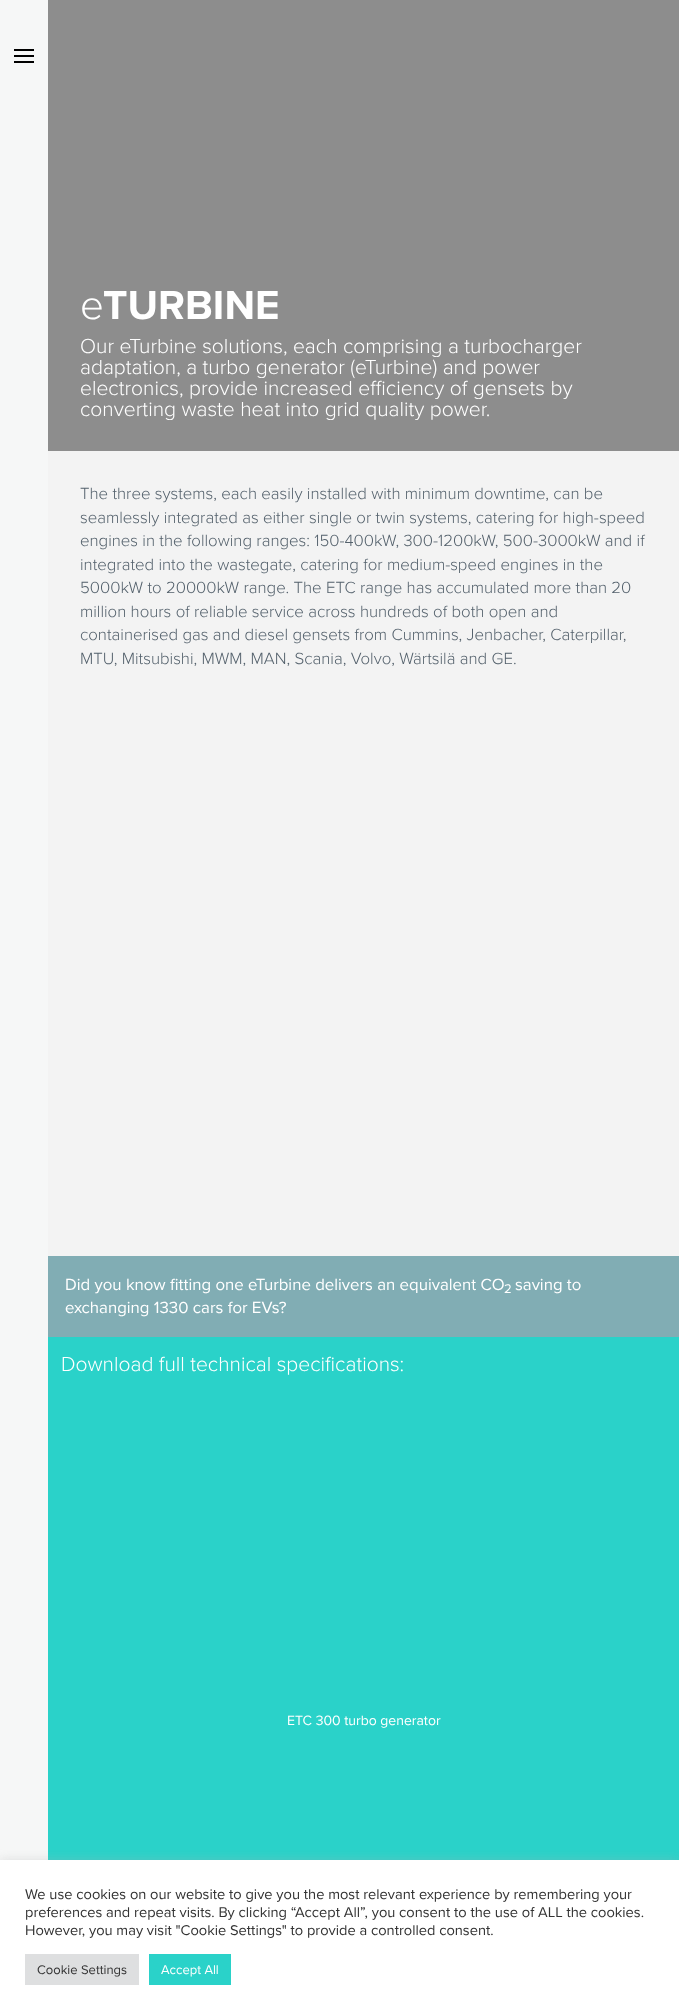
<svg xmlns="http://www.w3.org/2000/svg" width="679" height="2015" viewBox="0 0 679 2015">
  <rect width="100%" height="100%" fill="rgb(243,243,243)"/>
  <rect x="0" y="0" width="48" height="1860" fill="rgb(246,247,247)"/>
  <rect x="14" y="49" width="20" height="2" fill="rgb(0,0,0)"/>
  <rect x="14" y="55" width="20" height="2" fill="rgb(0,0,0)"/>
  <rect x="14" y="61" width="20" height="2" fill="rgb(0,0,0)"/>
  <rect x="48" y="0" width="631" height="451" fill="rgb(141,141,141)"/>
  <text x="80" y="319" font-family="Proxima Nova" font-size="42" font-weight="300" fill="rgb(255,255,255)">e</text>
  <text x="103" y="319" font-family="Proxima Nova" font-size="42" font-weight="bold" fill="rgb(255,255,255)">TURBINE</text>
  <g font-family="Proxima Nova" font-size="21" font-weight="300" fill="rgb(255,255,255)">
    <text>
      <tspan x="80" y="353">Our eTurbine solutions, each comprising a turbocharger</tspan>
      <tspan x="80" y="374">adaptation, a turbo generator (eTurbine) and power</tspan>
      <tspan x="80" y="395">electronics, provide increased efficiency of gensets by</tspan>
      <tspan x="80" y="416">converting waste heat into grid quality power.</tspan>
    </text>
  </g>
  <g font-family="Proxima Nova" font-size="16.8" font-weight="300" fill="rgb(84,97,108)">
    <text>
      <tspan x="80" y="499">The three systems, each easily installed with minimum downtime, can be</tspan>
      <tspan x="80" y="523">seamlessly integrated as either single or twin systems, catering for high-speed</tspan>
      <tspan x="80" y="546">engines in the following ranges: 150-400kW, 300-1200kW, 500-3000kW and if</tspan>
      <tspan x="80" y="570">integrated into the wastegate, catering for medium-speed engines in the</tspan>
      <tspan x="80" y="593">5000kW to 20000kW range. The ETC range has accumulated more than 20</tspan>
      <tspan x="80" y="617">million hours of reliable service across hundreds of both open and</tspan>
      <tspan x="80" y="640">containerised gas and diesel gensets from Cummins, Jenbacher, Caterpillar,</tspan>
      <tspan x="80" y="664">MTU, Mitsubishi, MWM, MAN, Scania, Volvo, Wärtsilä and GE.</tspan>
    </text>
  </g>
  <rect x="48" y="1256" width="631" height="81" fill="rgb(129,173,180)"/>
  <text x="65" y="1290" font-family="Proxima Nova" font-size="16.8" fill="rgb(255,255,255)">Did you know fitting one eTurbine delivers an equivalent CO</text>
  <text x="504" y="1293" font-family="Proxima Nova" font-size="13" fill="rgb(255,255,255)">2</text>
  <g font-family="Proxima Nova" font-size="16.8" fill="rgb(255,255,255)">
    <text x="515" y="1290">saving to</text>
    <text x="65" y="1313">exchanging 1330 cars for EVs?</text>
  </g>
  <rect x="48" y="1337" width="631" height="523" fill="rgb(42,210,201)"/>
  <text x="61" y="1371" font-family="Proxima Nova" font-size="21" font-weight="300" fill="rgb(255,255,255)">Download full technical specifications:</text>
  <text x="287" y="1725" font-family="Proxima Nova" font-size="14" fill="rgb(255,255,255)">ETC 300 turbo generator</text>
  <rect x="0" y="1859" width="679" height="155" fill="rgba(172,171,171,0.3)" filter="blur(5px)"/>
  <rect x="0" y="1860" width="679" height="155" fill="rgb(255,255,255)"/>
  <g font-family="Proxima Nova" font-size="14.65" fill="rgb(51,51,51)">
    <text>
      <tspan x="25" y="1899">We use cookies on our website to give you the most relevant experience by remembering your</tspan>
      <tspan x="25" y="1917">preferences and repeat visits. By clicking “Accept All”, you consent to the use of ALL the cookies.</tspan>
      <tspan x="25" y="1935">However, you may visit "Cookie Settings" to provide a controlled consent.</tspan>
    </text>
  </g>
  <rect x="25" y="1954" width="114" height="31" fill="rgb(222,223,224)"/>
  <text x="37" y="1974" font-family="Proxima Nova" font-size="13" fill="rgb(51,51,51)">Cookie Settings</text>
  <rect x="149" y="1954" width="82" height="31" fill="rgb(42,210,201)"/>
  <text x="161" y="1974" font-family="Proxima Nova" font-size="13" fill="rgb(255,255,255)">Accept All</text>
</svg>
